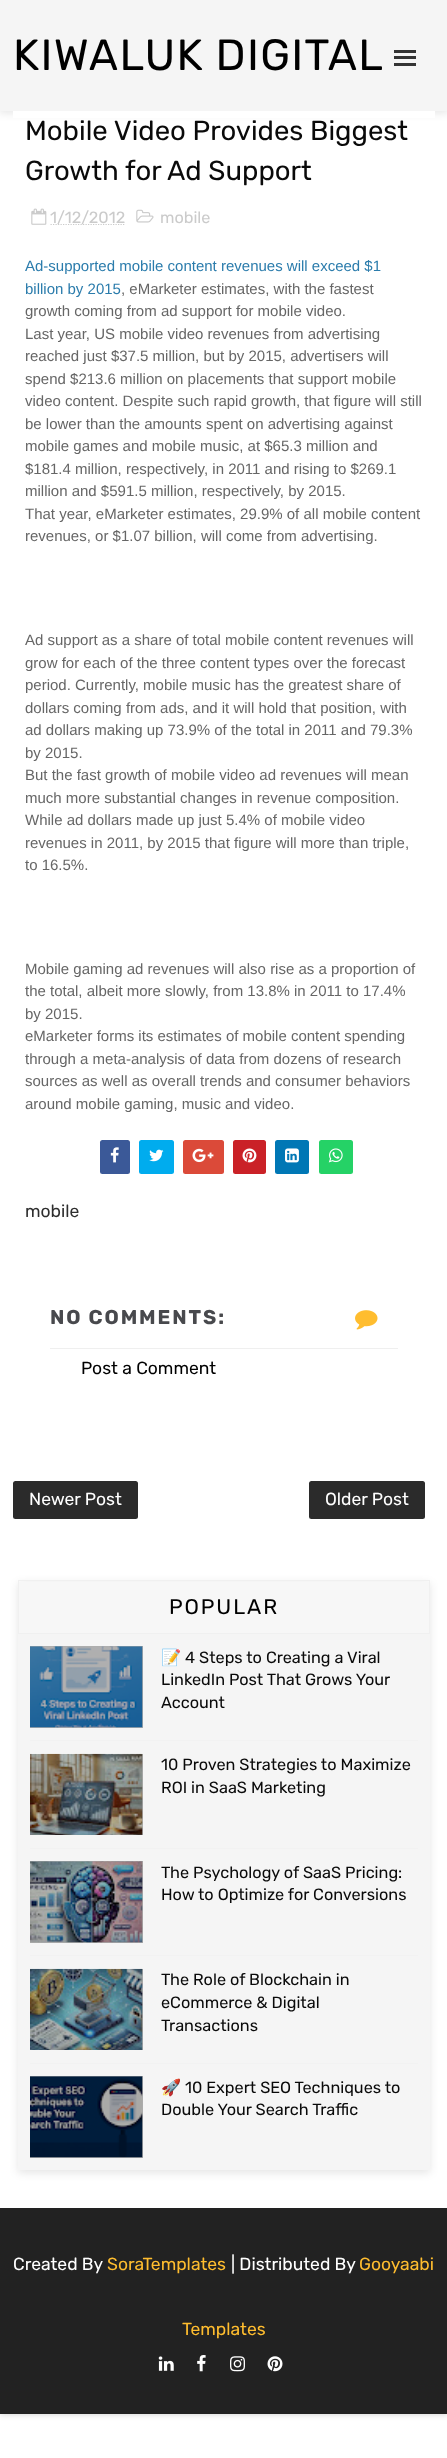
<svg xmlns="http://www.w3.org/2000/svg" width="447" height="2458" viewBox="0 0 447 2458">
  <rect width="100%" height="100%" fill="rgb(255,255,255)"/>
  <rect x="0" y="0" width="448" height="2414" fill="rgba(0,0,0,0.2)" filter="blur(3px)"/>
  <rect x="0" y="111" width="447" height="2097" fill="rgb(255,255,255)"/>
  <rect x="-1" y="-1" width="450" height="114" fill="rgba(0,0,0,0.1)" filter="blur(4px)"/>
  <rect x="0" y="0" width="447" height="111" fill="rgb(245,245,245)"/>
  <text x="13" y="70" font-family="Rubik" font-size="43.75" letter-spacing="1.25" fill="rgb(0,0,0)">KIWALUK DIGITAL</text>
  <rect x="394" y="50" width="22" height="3" fill="rgb(52,52,52)"/>
  <rect x="394" y="56" width="22" height="3" fill="rgb(52,52,52)"/>
  <rect x="394" y="63" width="22" height="3" fill="rgb(52,52,52)"/>
  <rect x="13" y="111" width="422" height="7" fill="rgb(255,255,255)"/>
  <g font-family="Rubik" font-size="27.5" fill="rgb(10,10,10)">
    <text>
      <tspan x="25" y="140">Mobile Video Provides Biggest</tspan>
      <tspan x="25" y="180">Growth for Ad Support</tspan>
    </text>
  </g>
  <image x="31" y="208" width="16" height="17" href="pic1.png"/>
  <path d="M50.5 224.5H125.5" fill="none" stroke="rgb(203,203,203)" stroke-width="1.2" stroke-dasharray="1.25 1.25"/>
  <text x="50" y="223" font-family="Rubik" font-size="16.25" fill="rgb(203,203,203)">1/12/2012</text>
  <image x="136" y="209" width="18" height="14" href="pic2.png"/>
  <text x="160" y="223" font-family="Rubik" font-size="16.25" fill="rgb(203,203,203)">mobile</text>
  <g font-family="Liberation Sans" font-size="15" fill="rgb(43,124,172)">
    <text>
      <tspan x="25" y="271">Ad-supported mobile content revenues will exceed $1</tspan>
      <tspan x="25" y="294">billion by 2015</tspan>
    </text>
  </g>
  <g font-family="Liberation Sans" font-size="15" fill="rgb(102,102,102)">
    <text x="121" y="294">, eMarketer estimates, with the fastest</text>
    <text>
      <tspan x="25" y="316">growth coming from ad support for mobile video.</tspan>
      <tspan x="25" y="339">Last year, US mobile video revenues from advertising</tspan>
      <tspan x="25" y="361">reached just $37.5 million, but by 2015, advertisers will</tspan>
      <tspan x="25" y="384">spend $213.6 million on placements that support mobile</tspan>
      <tspan x="25" y="406">video content. Despite such rapid growth, that figure will still</tspan>
      <tspan x="25" y="429">be lower than the amounts spent on advertising against</tspan>
      <tspan x="25" y="451">mobile games and mobile music, at $65.3 million and</tspan>
      <tspan x="25" y="474">$181.4 million, respectively, in 2011 and rising to $269.1</tspan>
      <tspan x="25" y="496">million and $591.5 million, respectively, by 2015.</tspan>
      <tspan x="25" y="519">That year, eMarketer estimates, 29.9% of all mobile content</tspan>
      <tspan x="25" y="541">revenues, or $1.07 billion, will come from advertising.</tspan>
    </text>
    <text>
      <tspan x="25" y="645">Ad support as a share of total mobile content revenues will</tspan>
      <tspan x="25" y="668">grow for each of the three content types over the forecast</tspan>
      <tspan x="25" y="690">period. Currently, mobile music has the greatest share of</tspan>
      <tspan x="25" y="713">dollars coming from ads, and it will hold that position, with</tspan>
      <tspan x="25" y="735">ad dollars making up 73.9% of the total in 2011 and 79.3%</tspan>
      <tspan x="25" y="758">by 2015.</tspan>
      <tspan x="25" y="780">But the fast growth of mobile video ad revenues will mean</tspan>
      <tspan x="25" y="803">much more substantial changes in revenue composition.</tspan>
      <tspan x="25" y="825">While ad dollars made up just 5.4% of mobile video</tspan>
      <tspan x="25" y="848">revenues in 2011, by 2015 that figure will more than triple,</tspan>
      <tspan x="25" y="870">to 16.5%.</tspan>
    </text>
    <text>
      <tspan x="25" y="974">Mobile gaming ad revenues will also rise as a proportion of</tspan>
      <tspan x="25" y="996">the total, albeit more slowly, from 13.8% in 2011 to 17.4%</tspan>
      <tspan x="25" y="1019">by 2015.</tspan>
      <tspan x="25" y="1041">eMarketer forms its estimates of mobile content spending</tspan>
      <tspan x="25" y="1064">through a meta-analysis of data from dozens of research</tspan>
      <tspan x="25" y="1086">sources as well as overall trends and consumer behaviors</tspan>
      <tspan x="25" y="1109">around mobile gaming, music and video.</tspan>
    </text>
  </g>
  <rect x="100" y="1140" width="30" height="34" rx="2.5" fill="rgb(59,89,152)"/>
  <image x="110" y="1147" width="9" height="16" href="pic3.png"/>
  <rect x="139" y="1140" width="35" height="34" rx="2.5" fill="rgb(0,172,238)"/>
  <image x="149" y="1149" width="15" height="13" href="pic4.png"/>
  <rect x="183" y="1140" width="41" height="34" rx="2.5" fill="rgb(219,74,57)"/>
  <image x="192" y="1148" width="22" height="15" href="pic5.png"/>
  <rect x="233" y="1140" width="33" height="34" rx="2.5" fill="rgb(202,33,39)"/>
  <image x="242" y="1148" width="15" height="15" href="pic6.png"/>
  <rect x="275" y="1140" width="34" height="34" rx="2.5" fill="rgb(0,119,181)"/>
  <image x="285" y="1148" width="14" height="15" href="pic7.png"/>
  <rect x="319" y="1140" width="34" height="34" rx="2.5" fill="rgb(37,210,102)"/>
  <image x="328" y="1148" width="15" height="15" href="pic8.png"/>
  <text x="25" y="1217" font-family="Rubik" font-size="17.5" fill="rgb(46,46,46)">mobile</text>
  <rect x="50" y="1348" width="348" height="1" fill="rgb(239,239,239)"/>
  <text x="50" y="1324" font-family="Rubik" font-size="20" font-weight="bold" letter-spacing="1.9" fill="rgb(72,73,77)">NO COMMENTS:</text>
  <image x="355" y="1310" width="23" height="20" href="pic9.png"/>
  <text x="81" y="1374" font-family="Rubik" font-size="17.5" fill="rgb(0,0,0)">Post a Comment</text>
  <rect x="13" y="1481" width="125" height="38" rx="2.5" fill="rgb(43,43,43)"/>
  <text x="29" y="1505" font-family="Rubik" font-size="17.5" fill="rgb(255,255,255)">Newer Post</text>
  <rect x="309" y="1481" width="116" height="38" rx="2.5" fill="rgb(43,43,43)"/>
  <text x="325" y="1505" font-family="Rubik" font-size="17.5" fill="rgb(255,255,255)">Older Post</text>
  <rect x="18" y="1583" width="412" height="590" fill="rgba(0,0,0,0.1)" filter="blur(4px)"/>
  <rect x="18" y="1634" width="412" height="536" fill="rgb(245,245,245)"/>
  <rect x="30" y="2076" width="113" height="82" fill="rgb(172,172,172)"/>
  <rect x="142" y="1969" width="1" height="81" fill="rgb(172,172,172)"/>
  <rect x="30" y="1861" width="113" height="82" fill="rgb(172,172,172)"/>
  <rect x="142" y="1754" width="1" height="81" fill="rgb(172,172,172)"/>
  <rect x="30" y="1646" width="113" height="82" fill="rgb(172,172,172)"/>
  <rect x="19" y="1582" width="410" height="51" fill="rgb(247,247,247)"/>
  <rect x="18.5" y="1580.5" width="411" height="53" fill="none" stroke="rgb(240,240,240)"/>
  <text x="169" y="1614" font-family="Rubik" font-size="21.25" letter-spacing="1.9" fill="rgb(0,0,0)">POPULAR</text>
  <image x="30" y="1646" width="113" height="82" href="pic10.png"/>
  <text x="161" y="1663" font-family="Noto Color Emoji" font-size="16.25" fill="rgb(10,10,10)">📝</text>
  <g font-family="Rubik" font-size="16.25" fill="rgb(10,10,10)">
    <text x="185" y="1663">4 Steps to Creating a Viral</text>
    <text>
      <tspan x="161" y="1685">LinkedIn Post That Grows Your</tspan>
      <tspan x="161" y="1708">Account</tspan>
    </text>
  </g>
  <rect x="30" y="1740" width="388" height="1" fill="rgb(242,242,242)"/>
  <image x="30" y="1753" width="113" height="82" href="pic11.png"/>
  <g font-family="Rubik" font-size="16.25" fill="rgb(10,10,10)">
    <text>
      <tspan x="161" y="1770">10 Proven Strategies to Maximize</tspan>
      <tspan x="161" y="1793">ROI in SaaS Marketing</tspan>
    </text>
  </g>
  <rect x="30" y="1848" width="388" height="1" fill="rgb(242,242,242)"/>
  <image x="30" y="1861" width="113" height="82" href="pic12.png"/>
  <g font-family="Rubik" font-size="16.25" fill="rgb(10,10,10)">
    <text>
      <tspan x="161" y="1878">The Psychology of SaaS Pricing:</tspan>
      <tspan x="161" y="1900">How to Optimize for Conversions</tspan>
    </text>
  </g>
  <rect x="30" y="1955" width="388" height="1" fill="rgb(242,242,242)"/>
  <image x="30" y="1968" width="113" height="82" href="pic13.png"/>
  <g font-family="Rubik" font-size="16.25" fill="rgb(10,10,10)">
    <text>
      <tspan x="161" y="1985">The Role of Blockchain in</tspan>
      <tspan x="161" y="2008">eCommerce &amp; Digital</tspan>
      <tspan x="161" y="2031">Transactions</tspan>
    </text>
  </g>
  <rect x="30" y="2063" width="388" height="1" fill="rgb(242,242,242)"/>
  <image x="30" y="2076" width="113" height="82" href="pic14.png"/>
  <text x="161" y="2093" font-family="Noto Color Emoji" font-size="16.25" fill="rgb(10,10,10)">🚀</text>
  <g font-family="Rubik" font-size="16.25" fill="rgb(10,10,10)">
    <text x="185" y="2093">10 Expert SEO Techniques to</text>
    <text x="161" y="2115">Double Your Search Traffic</text>
  </g>
  <rect x="0" y="2208" width="447" height="206" fill="rgb(34,34,34)"/>
  <text x="13" y="2270" font-family="Rubik" font-size="17.5" fill="rgb(255,255,255)">Created By</text>
  <text x="107" y="2270" font-family="Rubik" font-size="17.5" fill="rgb(255,189,47)">SoraTemplates</text>
  <text x="231" y="2270" font-family="Rubik" font-size="17.5" fill="rgb(255,255,255)">| Distributed By</text>
  <g font-family="Rubik" font-size="17.5" fill="rgb(255,189,47)">
    <text x="359" y="2270">Gooyaabi</text>
    <text x="182" y="2335">Templates</text>
  </g>
  <image x="158" y="2356" width="16" height="15" href="pic15.png"/>
  <image x="197" y="2355" width="9" height="17" href="pic16.png"/>
  <image x="230" y="2356" width="15" height="16" href="pic17.png"/>
  <image x="267" y="2356" width="16" height="16" href="pic18.png"/>
</svg>
